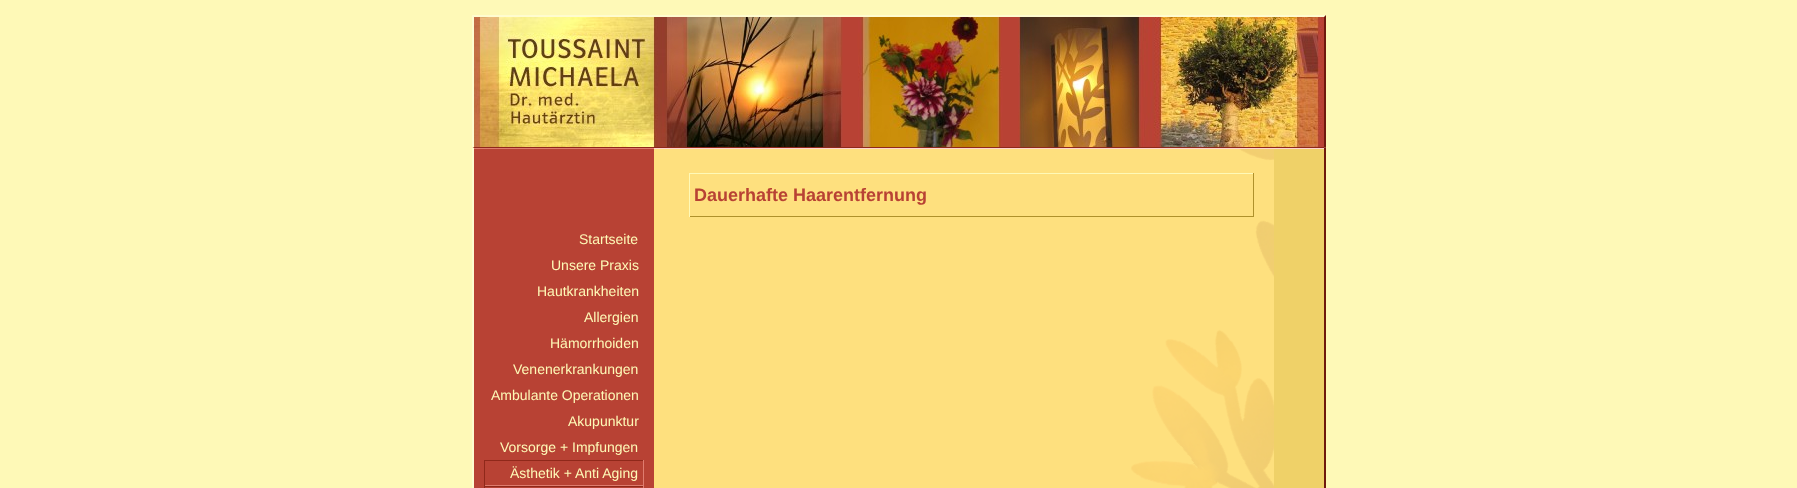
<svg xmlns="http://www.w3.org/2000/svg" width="1797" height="488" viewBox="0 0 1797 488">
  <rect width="100%" height="100%" fill="rgb(254,249,183)"/>
  <path d="M472 15H1326L1324 17H474Z" fill="rgb(255,252,207)"/>
  <path d="M1326 15V148L1324 147V17Z" fill="rgb(111,25,13)"/>
  <path d="M1326 148H472L474 147H1324Z" fill="rgb(143,40,26)"/>
  <path d="M472 148V15L474 17V147Z" fill="rgb(255,252,207)"/>
  <image x="474" y="17" width="850" height="130" href="pic1.png"/>
  <rect x="1324" y="148" width="2" height="340" fill="rgb(111,25,13)"/>
  <rect x="472" y="148" width="2" height="340" fill="rgb(255,252,207)"/>
  <rect x="654" y="149" width="620" height="339" fill="rgb(254,224,126)"/>
  <image x="1131" y="149" width="143" height="339" href="pic2.png"/>
  <rect x="654" y="148" width="670" height="1" fill="rgb(255,213,207)"/>
  <rect x="689" y="173" width="565" height="1" fill="rgb(254,249,183)"/>
  <rect x="1253" y="173" width="1" height="44" fill="rgb(175,145,43)"/>
  <rect x="689" y="216" width="565" height="1" fill="rgb(175,145,43)"/>
  <rect x="689" y="173" width="1" height="44" fill="rgb(254,249,183)"/>
  <text x="694" y="201" font-family="Liberation Sans" font-size="18" font-weight="bold" fill="rgb(184,66,52)">Dauerhafte Haarentfernung</text>
  <rect x="1274" y="149" width="50" height="339" fill="rgb(239,209,104)"/>
  <rect x="474" y="149" width="180" height="339" fill="rgb(184,66,52)"/>
  <rect x="474" y="148" width="180" height="1" fill="rgb(223,124,111)"/>
  <g font-family="Liberation Sans" font-size="14" fill="rgb(254,249,183)">
    <text x="579" y="244">Startseite</text>
    <text x="551" y="270">Unsere Praxis</text>
    <text x="537" y="296">Hautkrankheiten</text>
    <text x="584" y="322">Allergien</text>
    <text x="550" y="348">Hämorrhoiden</text>
    <text x="513" y="374">Venenerkrankungen</text>
    <text x="491" y="400">Ambulante Operationen</text>
    <text x="568" y="426">Akupunktur</text>
    <text x="500" y="452">Vorsorge + Impfungen</text>
  </g>
  <rect x="484" y="460" width="160" height="1" fill="rgb(143,40,26)"/>
  <rect x="643" y="460" width="1" height="26" fill="rgb(223,124,111)"/>
  <rect x="484" y="485" width="160" height="1" fill="rgb(223,124,111)"/>
  <rect x="484" y="460" width="1" height="26" fill="rgb(143,40,26)"/>
  <text x="510" y="478" font-family="Liberation Sans" font-size="14" fill="rgb(254,249,183)">Ästhetik + Anti Aging</text>
  <rect x="484" y="486" width="160" height="1" fill="rgb(143,40,26)"/>
  <rect x="643" y="486" width="1" height="2" fill="rgb(223,124,111)"/>
  <rect x="484" y="486" width="1" height="2" fill="rgb(143,40,26)"/>
</svg>
